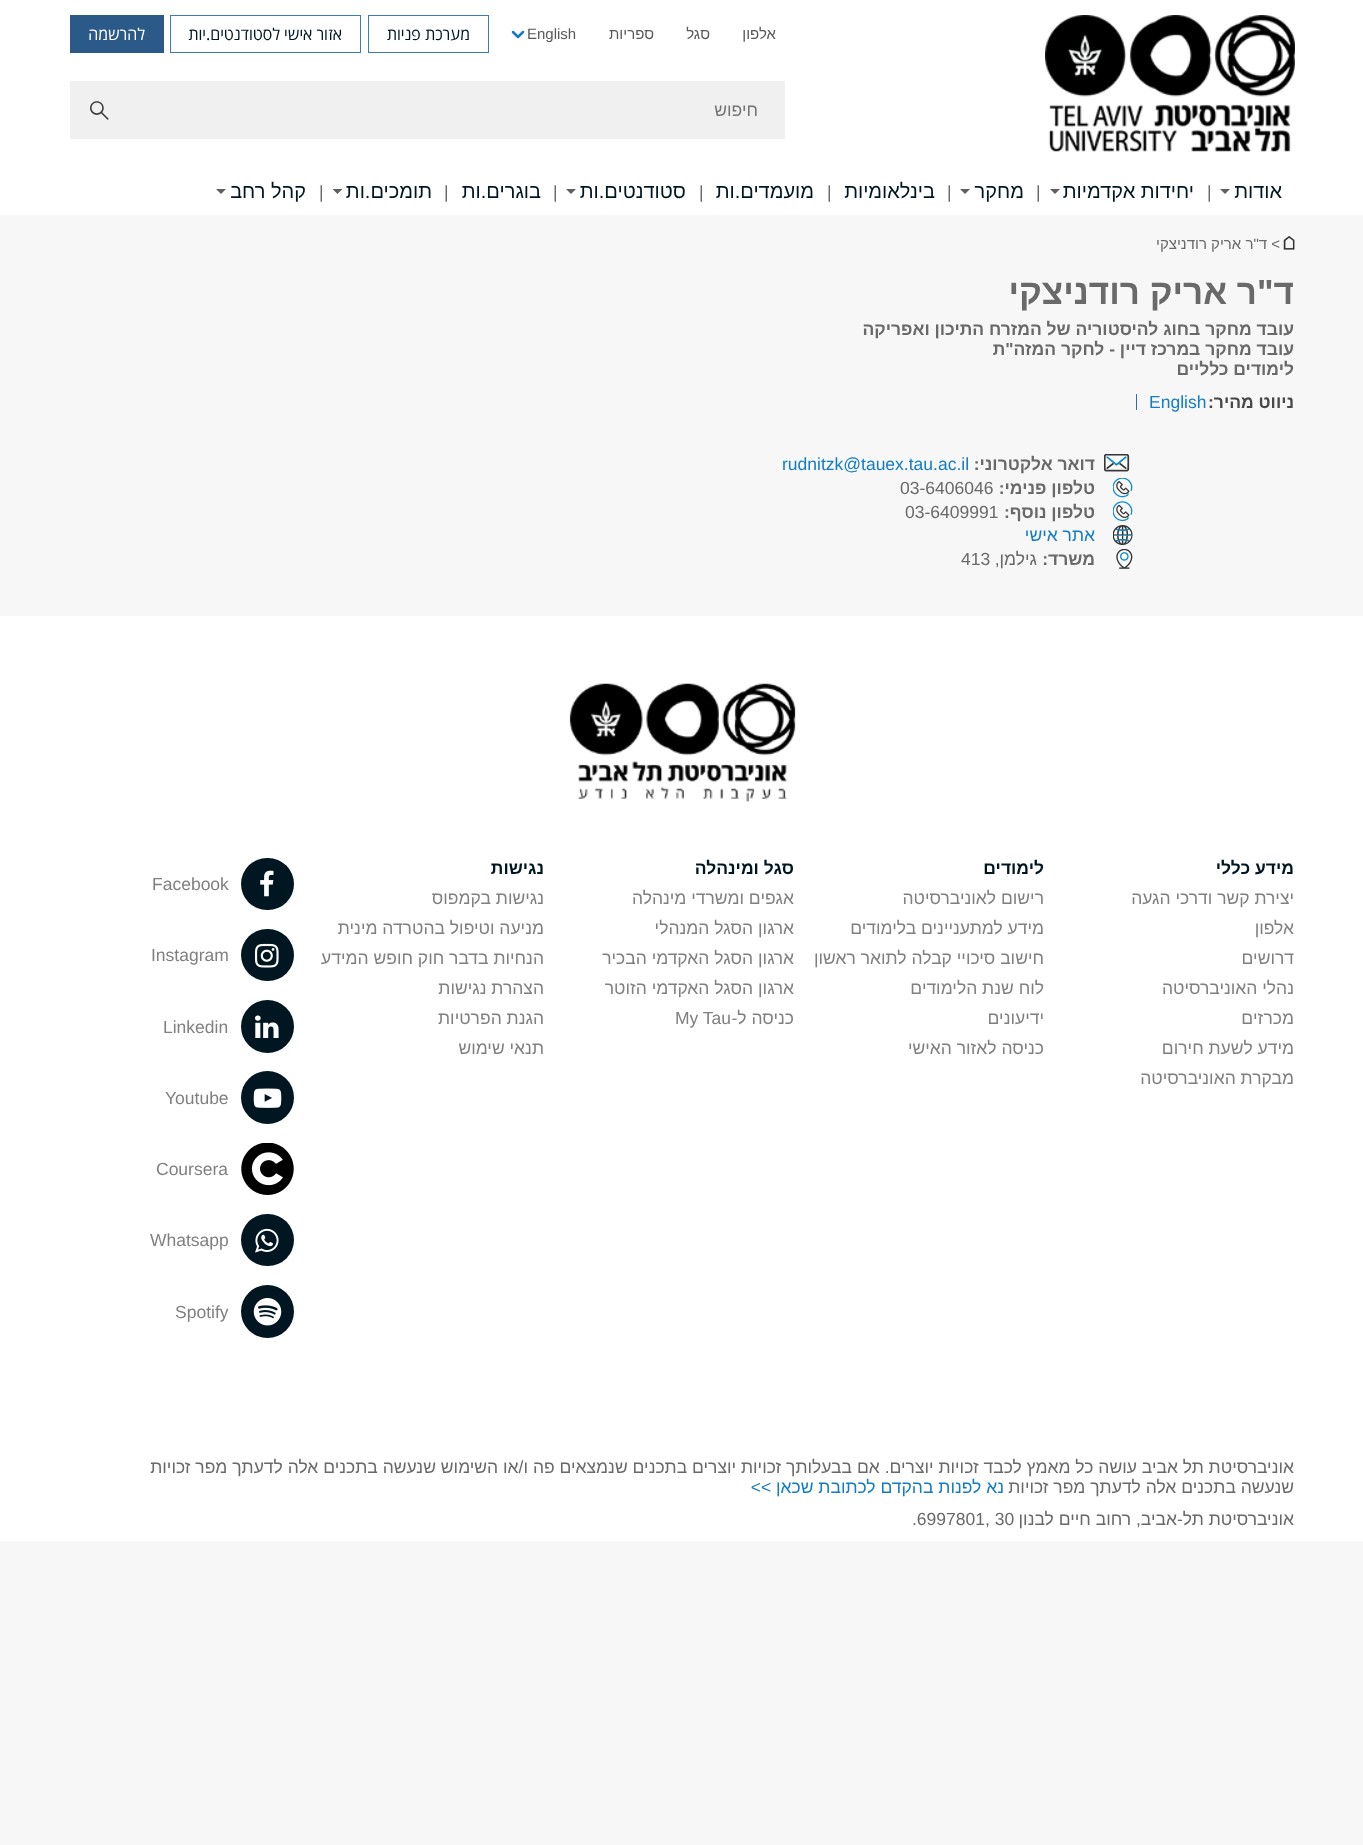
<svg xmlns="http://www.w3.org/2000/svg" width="1363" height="1845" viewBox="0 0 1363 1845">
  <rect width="100%" height="100%" fill="rgb(247,247,247)"/>
  <rect x="0" y="0" width="1363" height="215" fill="rgb(255,255,255)"/>
  <image x="1045" y="15" width="250" height="137" href="pic1.png"/>
  <g font-family="Liberation Sans" font-size="15" direction="rtl" fill="rgb(89,89,89)">
    <text x="776" y="39">אלפון</text>
    <text x="710" y="39">סגל</text>
    <text x="654" y="39">ספריות</text>
  </g>
  <text x="527" y="39" font-family="Liberation Sans" font-size="15" fill="rgb(89,89,89)">English</text>
  <path d="M523 32L518 37M513 32L518 37" fill="none" stroke="rgb(20,124,194)" stroke-width="2.5" stroke-linecap="round"/>
  <rect x="368.5" y="15.5" width="120" height="37" fill="none" stroke="rgb(59,123,189)"/>
  <text x="470" y="40" font-family="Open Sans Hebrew" font-size="16.25" direction="rtl" fill="rgb(0,23,33)">מערכת פניות</text>
  <rect x="170.5" y="15.5" width="190" height="37" fill="none" stroke="rgb(59,123,189)"/>
  <text x="342" y="40" font-family="Open Sans Hebrew" font-size="16.25" direction="rtl" fill="rgb(0,23,33)">אזור אישי לסטודנטים.יות</text>
  <rect x="70" y="15" width="94" height="38" fill="rgb(43,89,136)"/>
  <text x="145" y="40" font-family="Open Sans Hebrew" font-size="16.25" direction="rtl" fill="rgb(255,255,255)">להרשמה</text>
  <rect x="70" y="81" width="715" height="58" fill="rgb(240,240,240)"/>
  <text x="758" y="116" font-family="Liberation Sans" font-size="17.5" direction="rtl" fill="rgb(117,117,117)">חיפוש</text>
  <image x="90" y="101" width="19" height="19" href="pic2.png"/>
  <text x="1282" y="198" font-family="Liberation Sans" font-size="20" direction="rtl" fill="rgb(0,23,33)">אודות</text>
  <path d="M1220 189H1230L1225 194Z" fill="rgb(96,96,96)"/>
  <text x="1207" y="198" font-family="Liberation Sans" font-size="17.5" fill="rgb(105,105,105)">|</text>
  <text x="1194" y="198" font-family="Liberation Sans" font-size="20" direction="rtl" fill="rgb(0,23,33)">יחידות אקדמיות</text>
  <path d="M1050 189H1060L1055 194Z" fill="rgb(96,96,96)"/>
  <text x="1036" y="198" font-family="Liberation Sans" font-size="17.5" fill="rgb(105,105,105)">|</text>
  <text x="1024" y="198" font-family="Liberation Sans" font-size="20" direction="rtl" fill="rgb(0,23,33)">מחקר</text>
  <path d="M960 189H970L965 194Z" fill="rgb(96,96,96)"/>
  <text x="947" y="198" font-family="Liberation Sans" font-size="17.5" fill="rgb(105,105,105)">|</text>
  <text x="935" y="198" font-family="Liberation Sans" font-size="20" direction="rtl" fill="rgb(0,23,33)">בינלאומיות</text>
  <text x="827" y="198" font-family="Liberation Sans" font-size="17.5" fill="rgb(105,105,105)">|</text>
  <text x="814" y="198" font-family="Liberation Sans" font-size="20" direction="rtl" fill="rgb(0,23,33)">מועמדים.ות</text>
  <text x="699" y="198" font-family="Liberation Sans" font-size="17.5" fill="rgb(105,105,105)">|</text>
  <text x="686" y="198" font-family="Liberation Sans" font-size="20" direction="rtl" fill="rgb(0,23,33)">סטודנטים.ות</text>
  <path d="M566 189H576L571 194Z" fill="rgb(96,96,96)"/>
  <text x="553" y="198" font-family="Liberation Sans" font-size="17.5" fill="rgb(105,105,105)">|</text>
  <text x="541" y="198" font-family="Liberation Sans" font-size="20" direction="rtl" fill="rgb(0,23,33)">בוגרים.ות</text>
  <text x="444" y="198" font-family="Liberation Sans" font-size="17.5" fill="rgb(105,105,105)">|</text>
  <text x="432" y="198" font-family="Liberation Sans" font-size="20" direction="rtl" fill="rgb(0,23,33)">תומכים.ות</text>
  <path d="M332.5 189H342.5L337.5 194Z" fill="rgb(96,96,96)"/>
  <text x="319" y="198" font-family="Liberation Sans" font-size="17.5" fill="rgb(105,105,105)">|</text>
  <text x="306" y="198" font-family="Liberation Sans" font-size="20" direction="rtl" fill="rgb(0,23,33)">קהל רחב</text>
  <path d="M216 189H226L221 194Z" fill="rgb(96,96,96)"/>
  <image x="1283" y="235" width="12" height="15" href="pic3.png"/>
  <text x="1280" y="249" font-family="Liberation Sans" font-size="15" direction="rtl" fill="rgb(105,105,105)">&gt; ד"ר אריק רודניצקי</text>
  <text x="1294" y="304" font-family="Liberation Sans" font-size="35" font-weight="bold" direction="rtl" fill="rgb(105,105,105)">ד"ר אריק רודניצקי</text>
  <g font-family="Liberation Sans" font-size="17.5" font-weight="bold" direction="rtl" fill="rgb(105,105,105)">
    <text>
      <tspan x="1294" y="335">עובד מחקר בחוג להיסטוריה של המזרח התיכון ואפריקה</tspan>
      <tspan x="1294" y="355">עובד מחקר במרכז דיין - לחקר המזה"ת</tspan>
      <tspan x="1294" y="375">לימודים כלליים</tspan>
    </text>
  </g>
  <text x="1294" y="408" font-family="Liberation Sans" font-size="17.5" font-weight="bold" direction="rtl" fill="rgb(72,72,72)">ניווט מהיר:</text>
  <rect x="1136" y="394" width="1" height="16" fill="rgb(50,106,189)"/>
  <text x="1149" y="408" font-family="Liberation Sans" font-size="17.5" fill="rgb(20,124,194)">English</text>
  <image x="1104" y="454" width="26" height="18" href="pic4.png"/>
  <text x="1095" y="470" font-family="Liberation Sans" font-size="17.5" font-weight="bold" direction="rtl" fill="rgb(105,105,105)">דואר אלקטרוני:</text>
  <text x="782" y="470" font-family="Liberation Sans" font-size="17.5" fill="rgb(20,124,194)">rudnitzk@tauex.tau.ac.il</text>
  <image x="1113" y="478" width="20" height="20" href="pic5.png"/>
  <text x="1095" y="494" font-family="Liberation Sans" font-size="17.5" font-weight="bold" direction="rtl" fill="rgb(105,105,105)">טלפון פנימי:</text>
  <text x="900" y="494" font-family="Liberation Sans" font-size="17.5" fill="rgb(105,105,105)">03-6406046</text>
  <image x="1113" y="501" width="20" height="20" href="pic6.png"/>
  <text x="1095" y="518" font-family="Liberation Sans" font-size="17.5" font-weight="bold" direction="rtl" fill="rgb(105,105,105)">טלפון נוסף:</text>
  <text x="905" y="518" font-family="Liberation Sans" font-size="17.5" fill="rgb(105,105,105)">03-6409991</text>
  <image x="1113" y="525" width="20" height="20" href="pic7.png"/>
  <text x="1095" y="541" font-family="Liberation Sans" font-size="17.5" direction="rtl" fill="rgb(20,124,194)">אתר אישי</text>
  <image x="1116" y="549" width="17" height="20" href="pic8.png"/>
  <text x="1095" y="565" font-family="Liberation Sans" font-size="17.5" font-weight="bold" direction="rtl" fill="rgb(105,105,105)">משרד:</text>
  <text x="1037" y="565" font-family="Liberation Sans" font-size="17.5" direction="rtl" fill="rgb(105,105,105)">גילמן,</text>
  <text x="961" y="565" font-family="Liberation Sans" font-size="17.5" fill="rgb(105,105,105)">413</text>
  <rect x="0" y="616" width="1363" height="925" fill="rgb(255,255,255)"/>
  <image x="569" y="683" width="227" height="119" href="pic9.png"/>
  <text x="1294" y="874" font-family="Liberation Sans" font-size="17.5" font-weight="bold" direction="rtl" fill="rgb(0,23,33)">מידע כללי</text>
  <g font-family="Liberation Sans" font-size="17.5" direction="rtl" fill="rgb(128,128,128)">
    <text>
      <tspan x="1294" y="904">יצירת קשר ודרכי הגעה</tspan>
      <tspan x="1294" y="934">אלפון</tspan>
      <tspan x="1294" y="964">דרושים</tspan>
      <tspan x="1294" y="994">נהלי האוניברסיטה</tspan>
      <tspan x="1294" y="1024">מכרזים</tspan>
      <tspan x="1294" y="1054">מידע לשעת חירום</tspan>
      <tspan x="1294" y="1084">מבקרת האוניברסיטה</tspan>
    </text>
  </g>
  <text x="1044" y="874" font-family="Liberation Sans" font-size="17.5" font-weight="bold" direction="rtl" fill="rgb(0,23,33)">לימודים</text>
  <g font-family="Liberation Sans" font-size="17.5" direction="rtl" fill="rgb(128,128,128)">
    <text>
      <tspan x="1044" y="904">רישום לאוניברסיטה</tspan>
      <tspan x="1044" y="934">מידע למתעניינים בלימודים</tspan>
      <tspan x="1044" y="964">חישוב סיכויי קבלה לתואר ראשון</tspan>
      <tspan x="1044" y="994">לוח שנת הלימודים</tspan>
      <tspan x="1044" y="1024">ידיעונים</tspan>
      <tspan x="1044" y="1054">כניסה לאזור האישי</tspan>
    </text>
  </g>
  <text x="794" y="874" font-family="Liberation Sans" font-size="17.5" font-weight="bold" direction="rtl" fill="rgb(0,23,33)">סגל ומינהלה</text>
  <g font-family="Liberation Sans" font-size="17.5" direction="rtl" fill="rgb(128,128,128)">
    <text>
      <tspan x="794" y="904">אגפים ומשרדי מינהלה</tspan>
      <tspan x="794" y="934">ארגון הסגל המנהלי</tspan>
      <tspan x="794" y="964">ארגון הסגל האקדמי הבכיר</tspan>
      <tspan x="794" y="994">ארגון הסגל האקדמי הזוטר</tspan>
      <tspan x="794" y="1024">כניסה ל-</tspan>
    </text>
  </g>
  <text x="675" y="1024" font-family="Liberation Sans" font-size="17.5" fill="rgb(128,128,128)">My Tau</text>
  <text x="544" y="874" font-family="Liberation Sans" font-size="17.5" font-weight="bold" direction="rtl" fill="rgb(0,23,33)">נגישות</text>
  <g font-family="Liberation Sans" font-size="17.5" direction="rtl" fill="rgb(128,128,128)">
    <text>
      <tspan x="544" y="904">נגישות בקמפוס</tspan>
      <tspan x="544" y="934">מניעה וטיפול בהטרדה מינית</tspan>
      <tspan x="544" y="964">הנחיות בדבר חוק חופש המידע</tspan>
      <tspan x="544" y="994">הצהרת נגישות</tspan>
      <tspan x="544" y="1024">הגנת הפרטיות</tspan>
      <tspan x="544" y="1054">תנאי שימוש</tspan>
    </text>
  </g>
  <rect x="241" y="858" width="53" height="52" rx="26" fill="rgb(0,23,33)"/>
  <image x="260" y="870" width="14" height="27" href="pic10.png"/>
  <text x="152" y="890" font-family="Liberation Sans" font-size="17.5" fill="rgb(128,128,128)">Facebook</text>
  <rect x="241" y="929" width="53" height="52" rx="26" fill="rgb(0,23,33)"/>
  <image x="255" y="943" width="24" height="25" href="pic11.png"/>
  <text x="151" y="961" font-family="Liberation Sans" font-size="17.5" fill="rgb(128,128,128)">Instagram</text>
  <circle cx="267.5" cy="1026.5" r="26.5" fill="rgb(0,23,33)"/>
  <image x="255" y="1015" width="24" height="23" href="pic12.png"/>
  <text x="163" y="1033" font-family="Liberation Sans" font-size="17.5" fill="rgb(128,128,128)">Linkedin</text>
  <circle cx="267.5" cy="1097.5" r="26.5" fill="rgb(0,23,33)"/>
  <image x="253" y="1088" width="29" height="20" href="pic13.png"/>
  <text x="165" y="1104" font-family="Liberation Sans" font-size="17.5" fill="rgb(128,128,128)">Youtube</text>
  <image x="241" y="1143" width="53" height="52" href="pic14.png"/>
  <text x="156" y="1175" font-family="Liberation Sans" font-size="17.5" fill="rgb(128,128,128)">Coursera</text>
  <rect x="241" y="1214" width="53" height="52" rx="26" fill="rgb(0,23,33)"/>
  <image x="255" y="1228" width="24" height="25" href="pic15.png"/>
  <text x="150" y="1246" font-family="Liberation Sans" font-size="17.5" fill="rgb(128,128,128)">Whatsapp</text>
  <circle cx="267.5" cy="1311.5" r="26.5" fill="rgb(0,23,33)"/>
  <image x="253" y="1298" width="29" height="28" href="pic16.png"/>
  <text x="175" y="1318" font-family="Liberation Sans" font-size="17.5" fill="rgb(128,128,128)">Spotify</text>
  <g font-family="Liberation Sans" font-size="17.5" direction="rtl" fill="rgb(105,105,105)">
    <text>
      <tspan x="1294" y="1473">אוניברסיטת תל אביב עושה כל מאמץ לכבד זכויות יוצרים. אם בבעלותך זכויות יוצרים בתכנים שנמצאים פה ו/או השימוש שנעשה בתכנים אלה לדעתך מפר זכויות</tspan>
      <tspan x="1294" y="1493">שנעשה בתכנים אלה לדעתך מפר זכויות</tspan>
    </text>
  </g>
  <text x="1004" y="1493" font-family="Liberation Sans" font-size="17.5" direction="rtl" fill="rgb(20,124,194)">נא לפנות בהקדם לכתובת שכאן &gt;&gt;</text>
  <text x="1294" y="1525" font-family="Liberation Sans" font-size="17.5" direction="rtl" fill="rgb(105,105,105)">אוניברסיטת תל-אביב, רחוב חיים לבנון</text>
  <text x="912" y="1525" font-family="Liberation Sans" font-size="17.5" fill="rgb(105,105,105)">.6997801, 30</text>
</svg>
